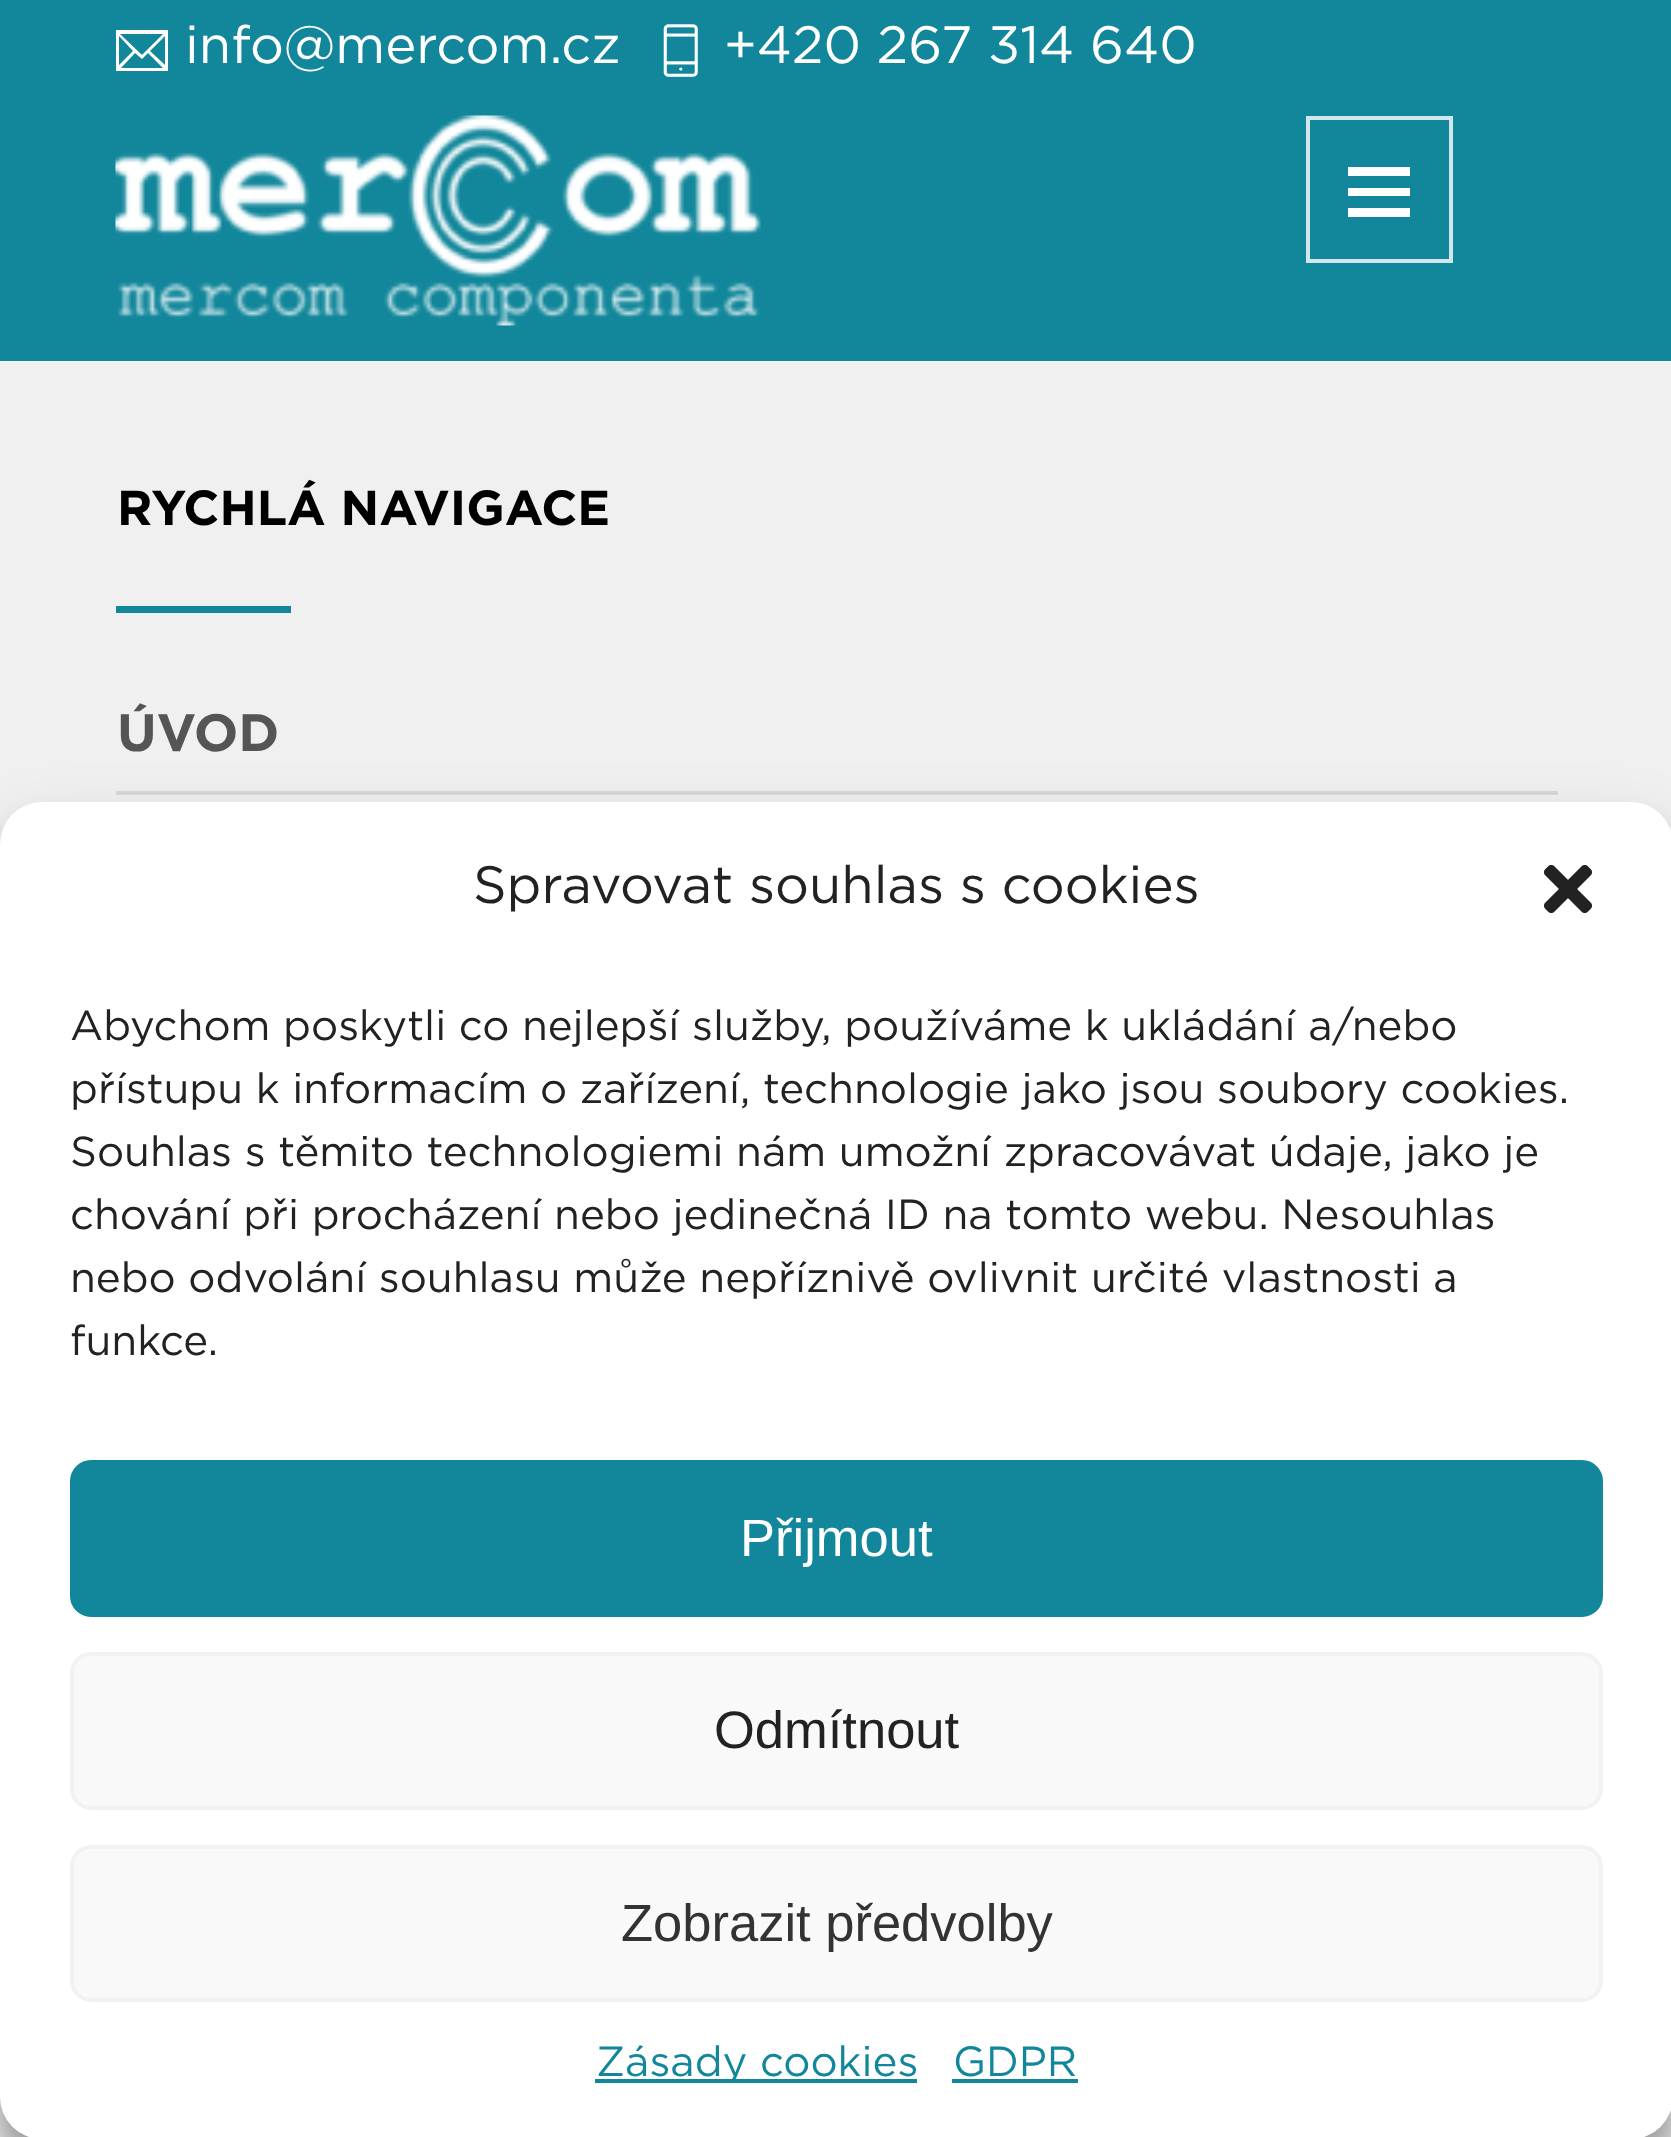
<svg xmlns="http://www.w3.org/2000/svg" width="1671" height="2137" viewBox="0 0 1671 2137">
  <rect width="100%" height="100%" fill="rgb(240,240,240)"/>
  <rect x="0" y="0" width="1671" height="361" fill="rgb(18,135,155)"/>
  <path d="M116 30V71H168V30ZM142 55L120 34H163ZM133 51L119 65V36ZM135 53L142 59L148 53L163 68H121ZM150 51L165 36V65Z" fill="rgb(255,255,255)"/>
  <text x="185" y="63" font-family="Gotham" font-size="52.5" fill="rgb(255,255,255)">info@mercom.cz</text>
  <image x="663" y="24" width="35" height="53" href="pic1.png"/>
  <text x="724" y="63" font-family="Gotham" font-size="52.5" fill="rgb(255,255,255)">+420 267 314 640</text>
  <image x="115" y="115" width="646" height="211" href="pic2.png"/>
  <rect x="1308" y="118" width="143" height="143" fill="none" stroke="rgb(208,231,235)" stroke-width="4"/>
  <path d="M1410 167V176H1348V167ZM1348 196H1410V188H1348ZM1348 217H1410V208H1348Z" fill="rgb(255,255,255)"/>
  <text x="117" y="525" font-family="Gotham" font-size="49" font-weight="bold" fill="rgb(0,0,0)">RYCHLÁ NAVIGACE</text>
  <rect x="116" y="606" width="175" height="7" fill="rgb(18,135,155)"/>
  <rect x="116" y="791" width="1442" height="4" fill="rgb(216,216,216)"/>
  <text x="117" y="751" font-family="Gotham" font-size="52.5" font-weight="bold" fill="rgb(85,85,85)">ÚVOD</text>
  <rect x="0" y="823" width="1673" height="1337" rx="42" fill="rgba(0,0,0,0.23)" filter="blur(10.5px)"/>
  <rect x="0" y="837" width="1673" height="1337" rx="42" fill="rgba(0,0,0,0.19)" filter="blur(35px)"/>
  <rect x="0" y="802" width="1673" height="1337" rx="42" fill="rgb(255,255,255)"/>
  <text x="473" y="903" font-family="Gotham" font-size="52.5" fill="rgb(34,34,34)">Spravovat souhlas s cookies</text>
  <image x="1543" y="864" width="50" height="50" href="pic3.png"/>
  <g font-family="Gotham" font-size="42" fill="rgb(34,34,34)">
    <text>
      <tspan x="70" y="1040">Abychom poskytli co nejlepší služby, používáme k ukládání a/nebo</tspan>
      <tspan x="70" y="1103">přístupu k informacím o zařízení, technologie jako jsou soubory cookies.</tspan>
      <tspan x="70" y="1166">Souhlas s těmito technologiemi nám umožní zpracovávat údaje, jako je</tspan>
      <tspan x="70" y="1229">chování při procházení nebo jedinečná ID na tomto webu. Nesouhlas</tspan>
      <tspan x="70" y="1292">nebo odvolání souhlasu může nepříznivě ovlivnit určité vlastnosti a</tspan>
      <tspan x="70" y="1355">funkce.</tspan>
    </text>
  </g>
  <rect x="72" y="1462" width="1529" height="153" rx="19" fill="rgb(18,135,155)" stroke="rgb(18,135,155)" stroke-width="4"/>
  <text x="740" y="1556" font-family="Liberation Sans" font-size="52.5" fill="rgb(255,255,255)">Přijmout</text>
  <rect x="72" y="1654" width="1529" height="154" rx="19" fill="rgb(249,249,249)" stroke="rgb(242,242,242)" stroke-width="4"/>
  <text x="714" y="1748" font-family="Liberation Sans" font-size="52.5" fill="rgb(34,34,34)">Odmítnout</text>
  <rect x="72" y="1847" width="1529" height="153" rx="19" fill="rgb(249,249,249)" stroke="rgb(242,242,242)" stroke-width="4"/>
  <text x="621" y="1941" font-family="Liberation Sans" font-size="52.5" fill="rgb(51,51,51)">Zobrazit předvolby</text>
  <rect x="595" y="2079" width="322" height="4" fill="rgb(18,135,155)"/>
  <g font-family="Gotham" font-size="42" fill="rgb(18,135,155)">
    <text x="596" y="2076">Zásady cookies</text>
    <text x="953" y="2076">GDPR</text>
  </g>
  <rect x="952" y="2079" width="126" height="4" fill="rgb(18,135,155)"/>
</svg>
